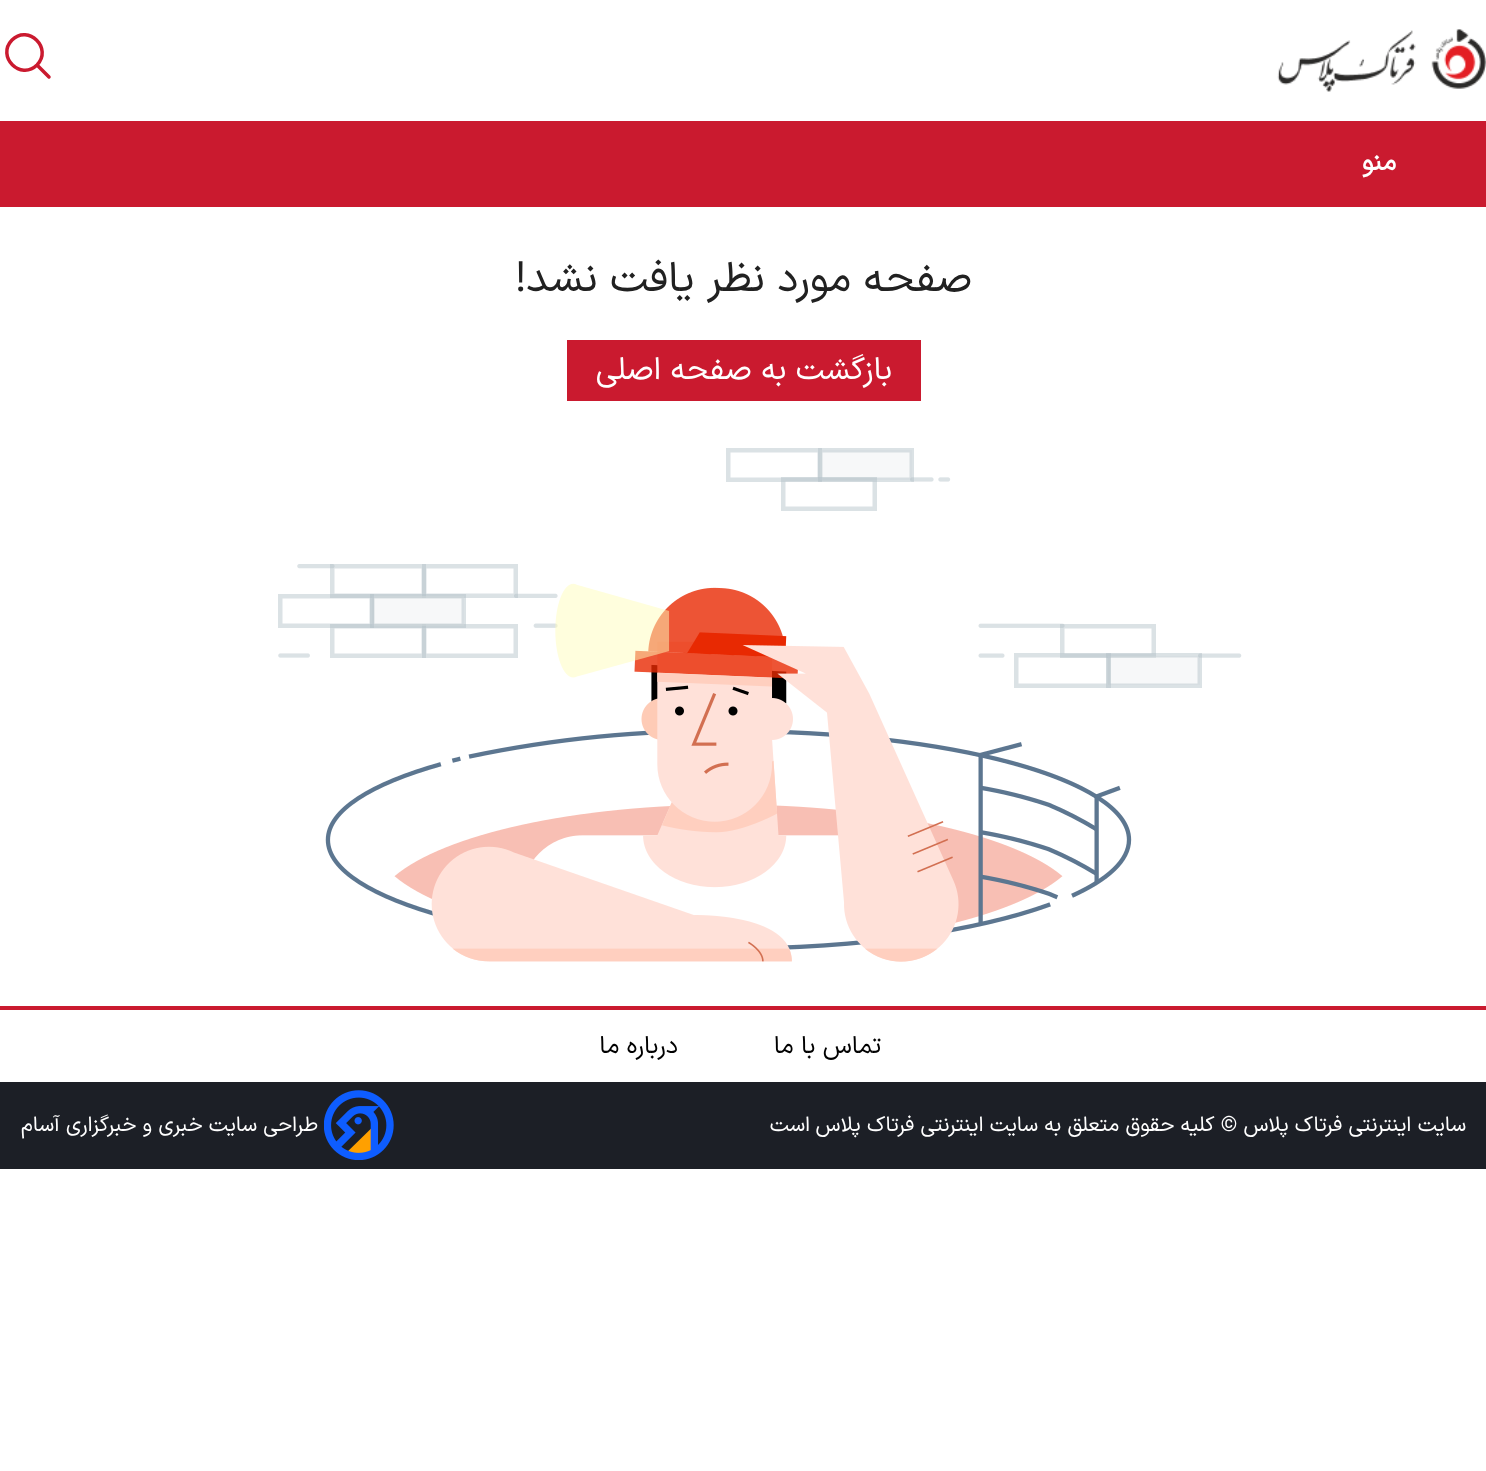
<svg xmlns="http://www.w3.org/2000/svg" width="1486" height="1471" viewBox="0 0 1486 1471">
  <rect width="100%" height="100%" fill="rgb(255,255,255)"/>
  <image x="1277" y="29" width="209" height="63" href="pic1.png"/>
  <path d="M49 77L37 65M37 65C53 48.5 28.5 24 12 40C-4 56.5 20.5 81 37 65Z" fill="none" stroke="rgb(202,26,47)" stroke-width="3.5" stroke-linecap="round" stroke-linejoin="round"/>
  <rect x="0" y="121" width="1486" height="86" fill="rgb(202,26,47)"/>
  <text x="1396" y="170" font-family="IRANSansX" font-size="26" font-weight="bold" direction="rtl" fill="rgb(255,255,255)">منو</text>
  <text x="972" y="291" font-family="IRANSansX" font-size="42" direction="rtl" fill="rgb(33,33,33)">صفحه مورد نظر یافت نشد!</text>
  <rect x="567" y="340" width="354" height="61" fill="rgb(202,26,47)"/>
  <text x="892" y="379" font-family="IRANSansX" font-size="31.5" direction="rtl" fill="rgb(255,255,255)">بازگشت به صفحه اصلی</text>
  <image x="278" y="448" width="964" height="514" href="pic2.png"/>
  <rect x="0" y="1006" width="1486" height="4" fill="rgb(202,26,47)"/>
  <g font-family="IRANSansX" font-size="24.5" direction="rtl" fill="rgb(0,0,0)">
    <text x="881" y="1053">تماس با ما</text>
    <text x="678" y="1053">درباره ما</text>
  </g>
  <rect x="0" y="1082" width="1486" height="87" fill="rgb(28,31,38)"/>
  <g font-family="IRANSansX" font-size="21" direction="rtl" fill="rgb(255,255,255)">
    <text x="1466" y="1131">سایت اینترنتی فرتاک پلاس © کلیه حقوق متعلق به سایت اینترنتی فرتاک پلاس</text>
    <text x="810" y="1131">است</text>
  </g>
  <image x="324" y="1090" width="70" height="70" href="pic3.png"/>
  <text x="318" y="1131" font-family="IRANSansX" font-size="21" direction="rtl" fill="rgb(255,255,255)">طراحی سایت خبری و خبرگزاری آسام</text>
</svg>
